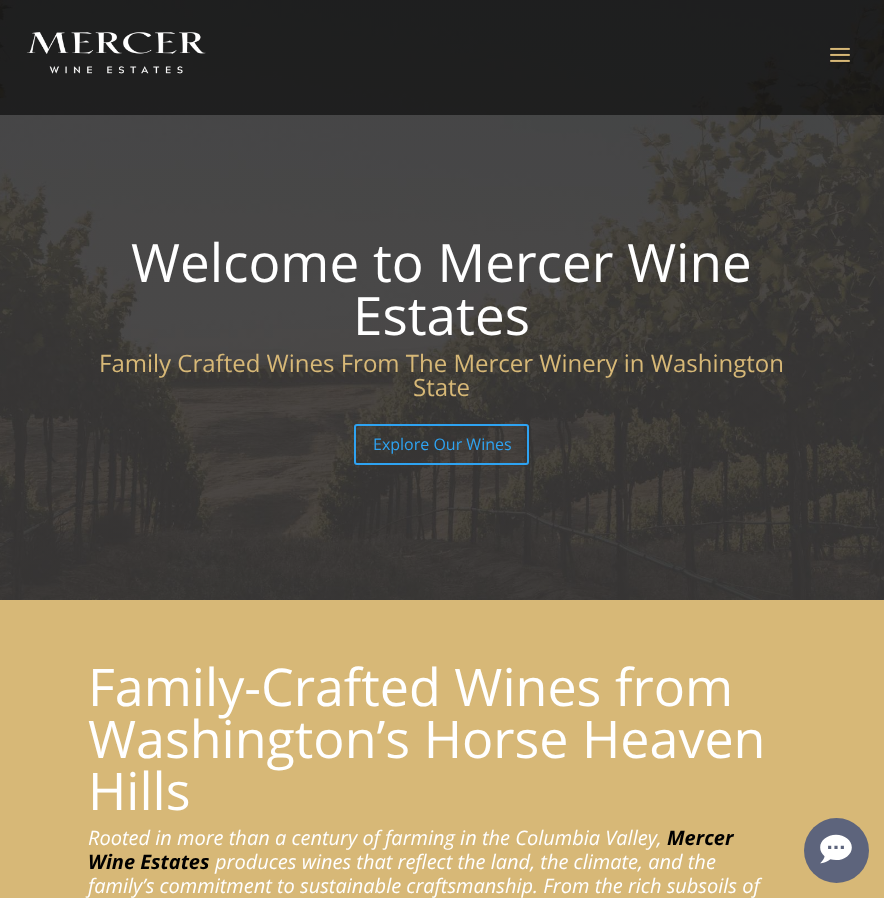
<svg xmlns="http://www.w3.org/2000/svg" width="884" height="898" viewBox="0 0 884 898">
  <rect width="100%" height="100%" fill="rgb(255,255,255)"/>
  <image x="0" y="0" width="884" height="600" href="pic3.png"/>
  <rect x="0" y="0" width="884" height="115" fill="rgba(0,0,0,0.55)"/>
  <image x="26" y="32" width="180" height="42" href="pic1.png"/>
  <image x="830" y="47" width="20" height="15" href="pic2.png"/>
  <g font-family="Open Sans" font-size="53" fill="rgb(255,255,255)">
    <text x="131" y="282">Welcome to Mercer Wine</text>
    <text x="353" y="335">Estates</text>
  </g>
  <g font-family="Open Sans" font-size="24" fill="rgb(215,184,119)">
    <text x="99" y="372">Family Crafted Wines From The Mercer Winery in Washington</text>
    <text x="413" y="396">State</text>
  </g>
  <rect x="355" y="425" width="173" height="39" rx="2" fill="none" stroke="rgb(46,163,242)" stroke-width="2"/>
  <text x="373" y="450" font-family="Open Sans" font-size="16" fill="rgb(46,163,242)">Explore Our Wines</text>
  <rect x="0" y="600" width="884" height="298" fill="rgb(215,184,119)"/>
  <g font-family="Open Sans" font-size="52" fill="rgb(255,255,255)">
    <text>
      <tspan x="88" y="706">Family-Crafted Wines from</tspan>
      <tspan x="88" y="758">Washington’s Horse Heaven</tspan>
      <tspan x="88" y="810">Hills</tspan>
    </text>
  </g>
  <text x="88" y="845" font-family="Open Sans" font-size="20" font-style="italic" fill="rgb(255,255,255)">Rooted in more than a century of farming in the Columbia Valley,</text>
  <g font-family="Open Sans" font-size="20" font-weight="bold" font-style="italic" fill="rgb(0,0,0)">
    <text x="667" y="845">Mercer</text>
    <text x="88" y="869">Wine Estates</text>
  </g>
  <g font-family="Open Sans" font-size="20" font-style="italic" fill="rgb(255,255,255)">
    <text x="215" y="869">produces wines that reflect the land, the climate, and the</text>
    <text x="88" y="893">family’s commitment to sustainable craftsmanship. From the rich subsoils of</text>
  </g>
  <image x="804" y="818" width="65" height="65" href="pic4.png"/>
</svg>
